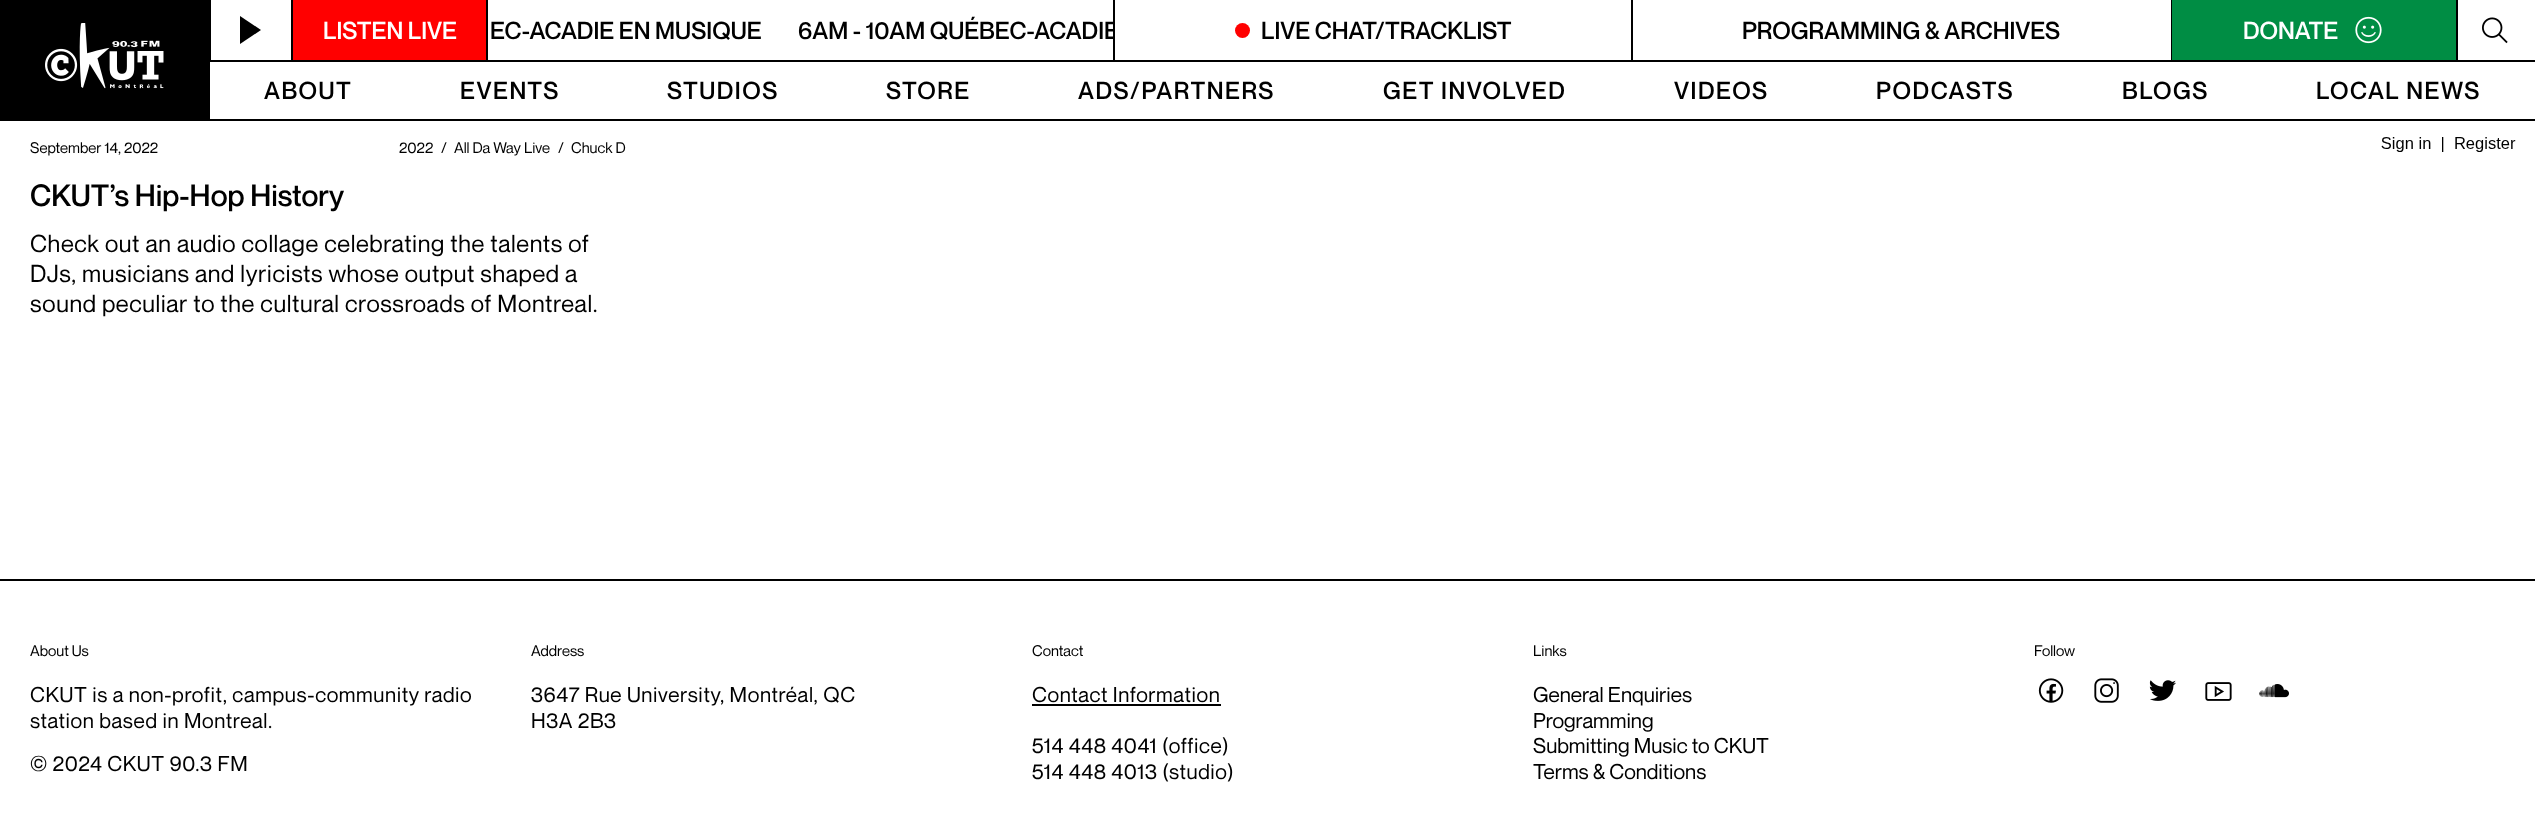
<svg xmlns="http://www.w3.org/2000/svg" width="2535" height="828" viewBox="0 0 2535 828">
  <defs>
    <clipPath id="clip1"><rect x="293" y="15" width="820" height="30"/></clipPath>
  </defs>
  <rect width="100%" height="100%" fill="rgb(255,255,255)"/>
  <rect x="0" y="120" width="210" height="1" fill="rgb(0,0,0)"/>
  <rect x="0" y="0" width="211" height="120" fill="rgb(0,0,0)"/>
  <image x="45" y="23" width="119" height="66" href="pic1.png"/>
  <rect x="291" y="0" width="2" height="60" fill="rgb(0,0,0)"/>
  <path d="M240 44L261 30L240 16Z" fill="rgb(0,0,0)"/>
  <rect x="1113" y="0" width="2" height="60" fill="rgb(0,0,0)"/>
  <rect x="293" y="0" width="193" height="60" fill="rgb(255,0,0)"/>
  <rect x="486" y="0" width="2" height="60" fill="rgb(0,0,0)"/>
  <text x="323" y="39" font-family="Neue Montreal" font-size="24" font-weight="500" fill="rgb(255,255,255)">LISTEN LIVE</text>
  <text x="490" y="39" font-family="Neue Montreal" font-size="24" font-weight="500" fill="rgb(0,0,0)">EC-ACADIE EN MUSIQUE</text>
  <g clip-path="url(#clip1)">
    <text x="798" y="39" font-family="Neue Montreal" font-size="24" font-weight="500" fill="rgb(0,0,0)">6AM - 10AM QUÉBEC-ACADIE</text>
  </g>
  <rect x="1631" y="0" width="2" height="60" fill="rgb(0,0,0)"/>
  <circle cx="1242.5" cy="30.5" r="7.5" fill="rgb(255,0,0)"/>
  <text x="1261" y="39" font-family="Neue Montreal" font-size="24" font-weight="500" fill="rgb(0,0,0)">LIVE CHAT/TRACKLIST</text>
  <rect x="2171" y="0" width="1" height="60" fill="rgb(0,0,0)"/>
  <text x="1742" y="39" font-family="Neue Montreal" font-size="24" font-weight="500" fill="rgb(0,0,0)">PROGRAMMING &amp; ARCHIVES</text>
  <rect x="2172" y="0" width="284" height="60" fill="rgb(0,141,68)"/>
  <text x="2243" y="39" font-family="Neue Montreal" font-size="24" font-weight="500" fill="rgb(255,255,255)">DONATE</text>
  <image x="2355" y="16" width="27" height="28" href="pic2.png"/>
  <rect x="2456" y="0" width="2" height="60" fill="rgb(0,0,0)"/>
  <image x="2482" y="17" width="26" height="27" href="pic3.png"/>
  <rect x="210" y="62" width="1" height="57" fill="rgb(255,255,255)"/>
  <rect x="210" y="60" width="2325" height="2" fill="rgb(0,0,0)"/>
  <rect x="210" y="119" width="2325" height="2" fill="rgb(0,0,0)"/>
  <g font-family="Neue Montreal" font-size="24" font-weight="500" letter-spacing="1.5" fill="rgb(0,0,0)">
    <text x="264" y="99">ABOUT</text>
    <text x="460" y="99">EVENTS</text>
    <text x="667" y="99">STUDIOS</text>
    <text x="886" y="99">STORE</text>
    <text x="1078" y="99">ADS/PARTNERS</text>
    <text x="1383" y="99">GET INVOLVED</text>
    <text x="1674" y="99">VIDEOS</text>
    <text x="1876" y="99">PODCASTS</text>
    <text x="2122" y="99">BLOGS</text>
    <text x="2316" y="99">LOCAL NEWS</text>
  </g>
  <g font-family="Neue Montreal" font-size="15" fill="rgb(0,0,0)">
    <text x="30" y="153">September 14, 2022</text>
    <text x="399" y="153">2022</text>
    <text x="441" y="153">/</text>
    <text x="454" y="153">All Da Way Live</text>
    <text x="558" y="153">/</text>
    <text x="571" y="153">Chuck D</text>
  </g>
  <text x="30" y="206" font-family="Neue Montreal" font-size="30" font-weight="500" fill="rgb(0,0,0)">CKUT’s Hip-Hop History</text>
  <g font-family="Neue Montreal" font-size="24" letter-spacing="0.6" fill="rgb(0,0,0)">
    <text>
      <tspan x="30" y="252">Check out an audio collage celebrating the talents of</tspan>
      <tspan x="30" y="282">DJs, musicians and lyricists whose output shaped a</tspan>
      <tspan x="30" y="312">sound peculiar to the cultural crossroads of Montreal.</tspan>
    </text>
  </g>
  <image x="2381" y="137" width="135" height="15" href="pic4.png"/>
  <rect x="0" y="579" width="2535" height="2" fill="rgb(0,0,0)"/>
  <text x="30" y="656" font-family="Neue Montreal" font-size="15" fill="rgb(0,0,0)">About Us</text>
  <g font-family="Neue Montreal" font-size="21" letter-spacing="0.6" fill="rgb(0,0,0)">
    <text>
      <tspan x="30" y="702">CKUT is a non-profit, campus-community radio</tspan>
      <tspan x="30" y="728">station based in Montreal.</tspan>
    </text>
    <text x="30" y="771">© 2024 CKUT 90.3 FM</text>
  </g>
  <text x="531" y="656" font-family="Neue Montreal" font-size="15" fill="rgb(0,0,0)">Address</text>
  <g font-family="Neue Montreal" font-size="21" letter-spacing="0.6" fill="rgb(0,0,0)">
    <text>
      <tspan x="531" y="702">3647 Rue University, Montréal, QC</tspan>
      <tspan x="531" y="728">H3A 2B3</tspan>
    </text>
  </g>
  <text x="1032" y="656" font-family="Neue Montreal" font-size="15" fill="rgb(0,0,0)">Contact</text>
  <text x="1032" y="702" font-family="Neue Montreal" font-size="21" letter-spacing="0.6" fill="rgb(0,0,0)">Contact Information</text>
  <rect x="1032" y="704" width="189" height="2" fill="rgb(0,0,0)"/>
  <g font-family="Neue Montreal" font-size="21" letter-spacing="0.6" fill="rgb(0,0,0)">
    <text>
      <tspan x="1032" y="753">514 448 4041 (office)</tspan>
      <tspan x="1032" y="779">514 448 4013 (studio)</tspan>
    </text>
  </g>
  <text x="1533" y="656" font-family="Neue Montreal" font-size="15" fill="rgb(0,0,0)">Links</text>
  <g font-family="Neue Montreal" font-size="21" fill="rgb(0,0,0)">
    <text>
      <tspan x="1533" y="702">General Enquiries</tspan>
      <tspan x="1533" y="728">Programming</tspan>
      <tspan x="1533" y="753">Submitting Music to CKUT</tspan>
      <tspan x="1533" y="779">Terms &amp; Conditions</tspan>
    </text>
  </g>
  <text x="2034" y="656" font-family="Neue Montreal" font-size="15" fill="rgb(0,0,0)">Follow</text>
  <image x="2038" y="678" width="26" height="25" href="pic5.png"/>
  <image x="2094" y="678" width="25" height="25" href="pic6.png"/>
  <image x="2149" y="680" width="27" height="21" href="pic7.png"/>
  <image x="2205" y="682" width="27" height="19" href="pic8.png"/>
  <image x="2259" y="684" width="30" height="14" href="pic9.png"/>
</svg>
